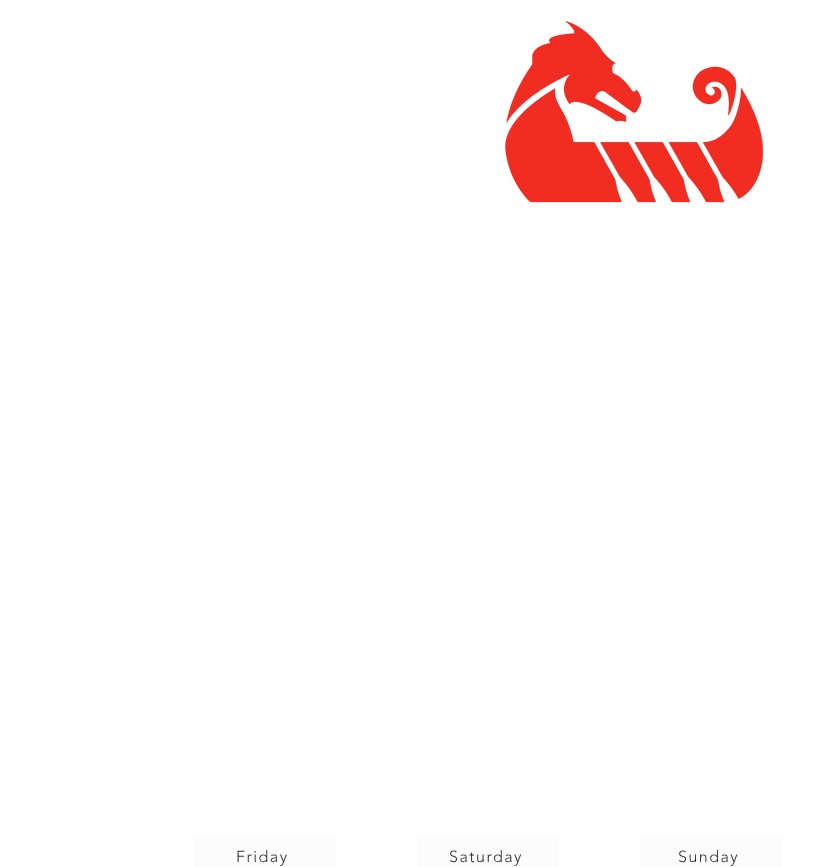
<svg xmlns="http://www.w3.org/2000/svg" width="813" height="867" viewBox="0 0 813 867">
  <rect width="100%" height="100%" fill="rgb(255,255,255)"/>
  <image x="505" y="20" width="259" height="183" href="pic1.png"/>
  <rect x="194" y="836" width="142" height="31" fill="rgb(252,252,252)"/>
  <text x="236" y="862" font-family="'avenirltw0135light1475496'" font-size="16" font-weight="300" letter-spacing="1.5" fill="rgb(49,47,46)">Friday</text>
  <rect x="417" y="836" width="142" height="31" fill="rgb(252,252,252)"/>
  <text x="449" y="862" font-family="'avenirltw0135light1475496'" font-size="16" font-weight="300" letter-spacing="1.5" fill="rgb(49,47,46)">Saturday</text>
  <rect x="640" y="836" width="142" height="31" fill="rgb(252,252,252)"/>
  <text x="678" y="862" font-family="'avenirltw0135light1475496'" font-size="16" font-weight="300" letter-spacing="1.5" fill="rgb(49,47,46)">Sunday</text>
</svg>
